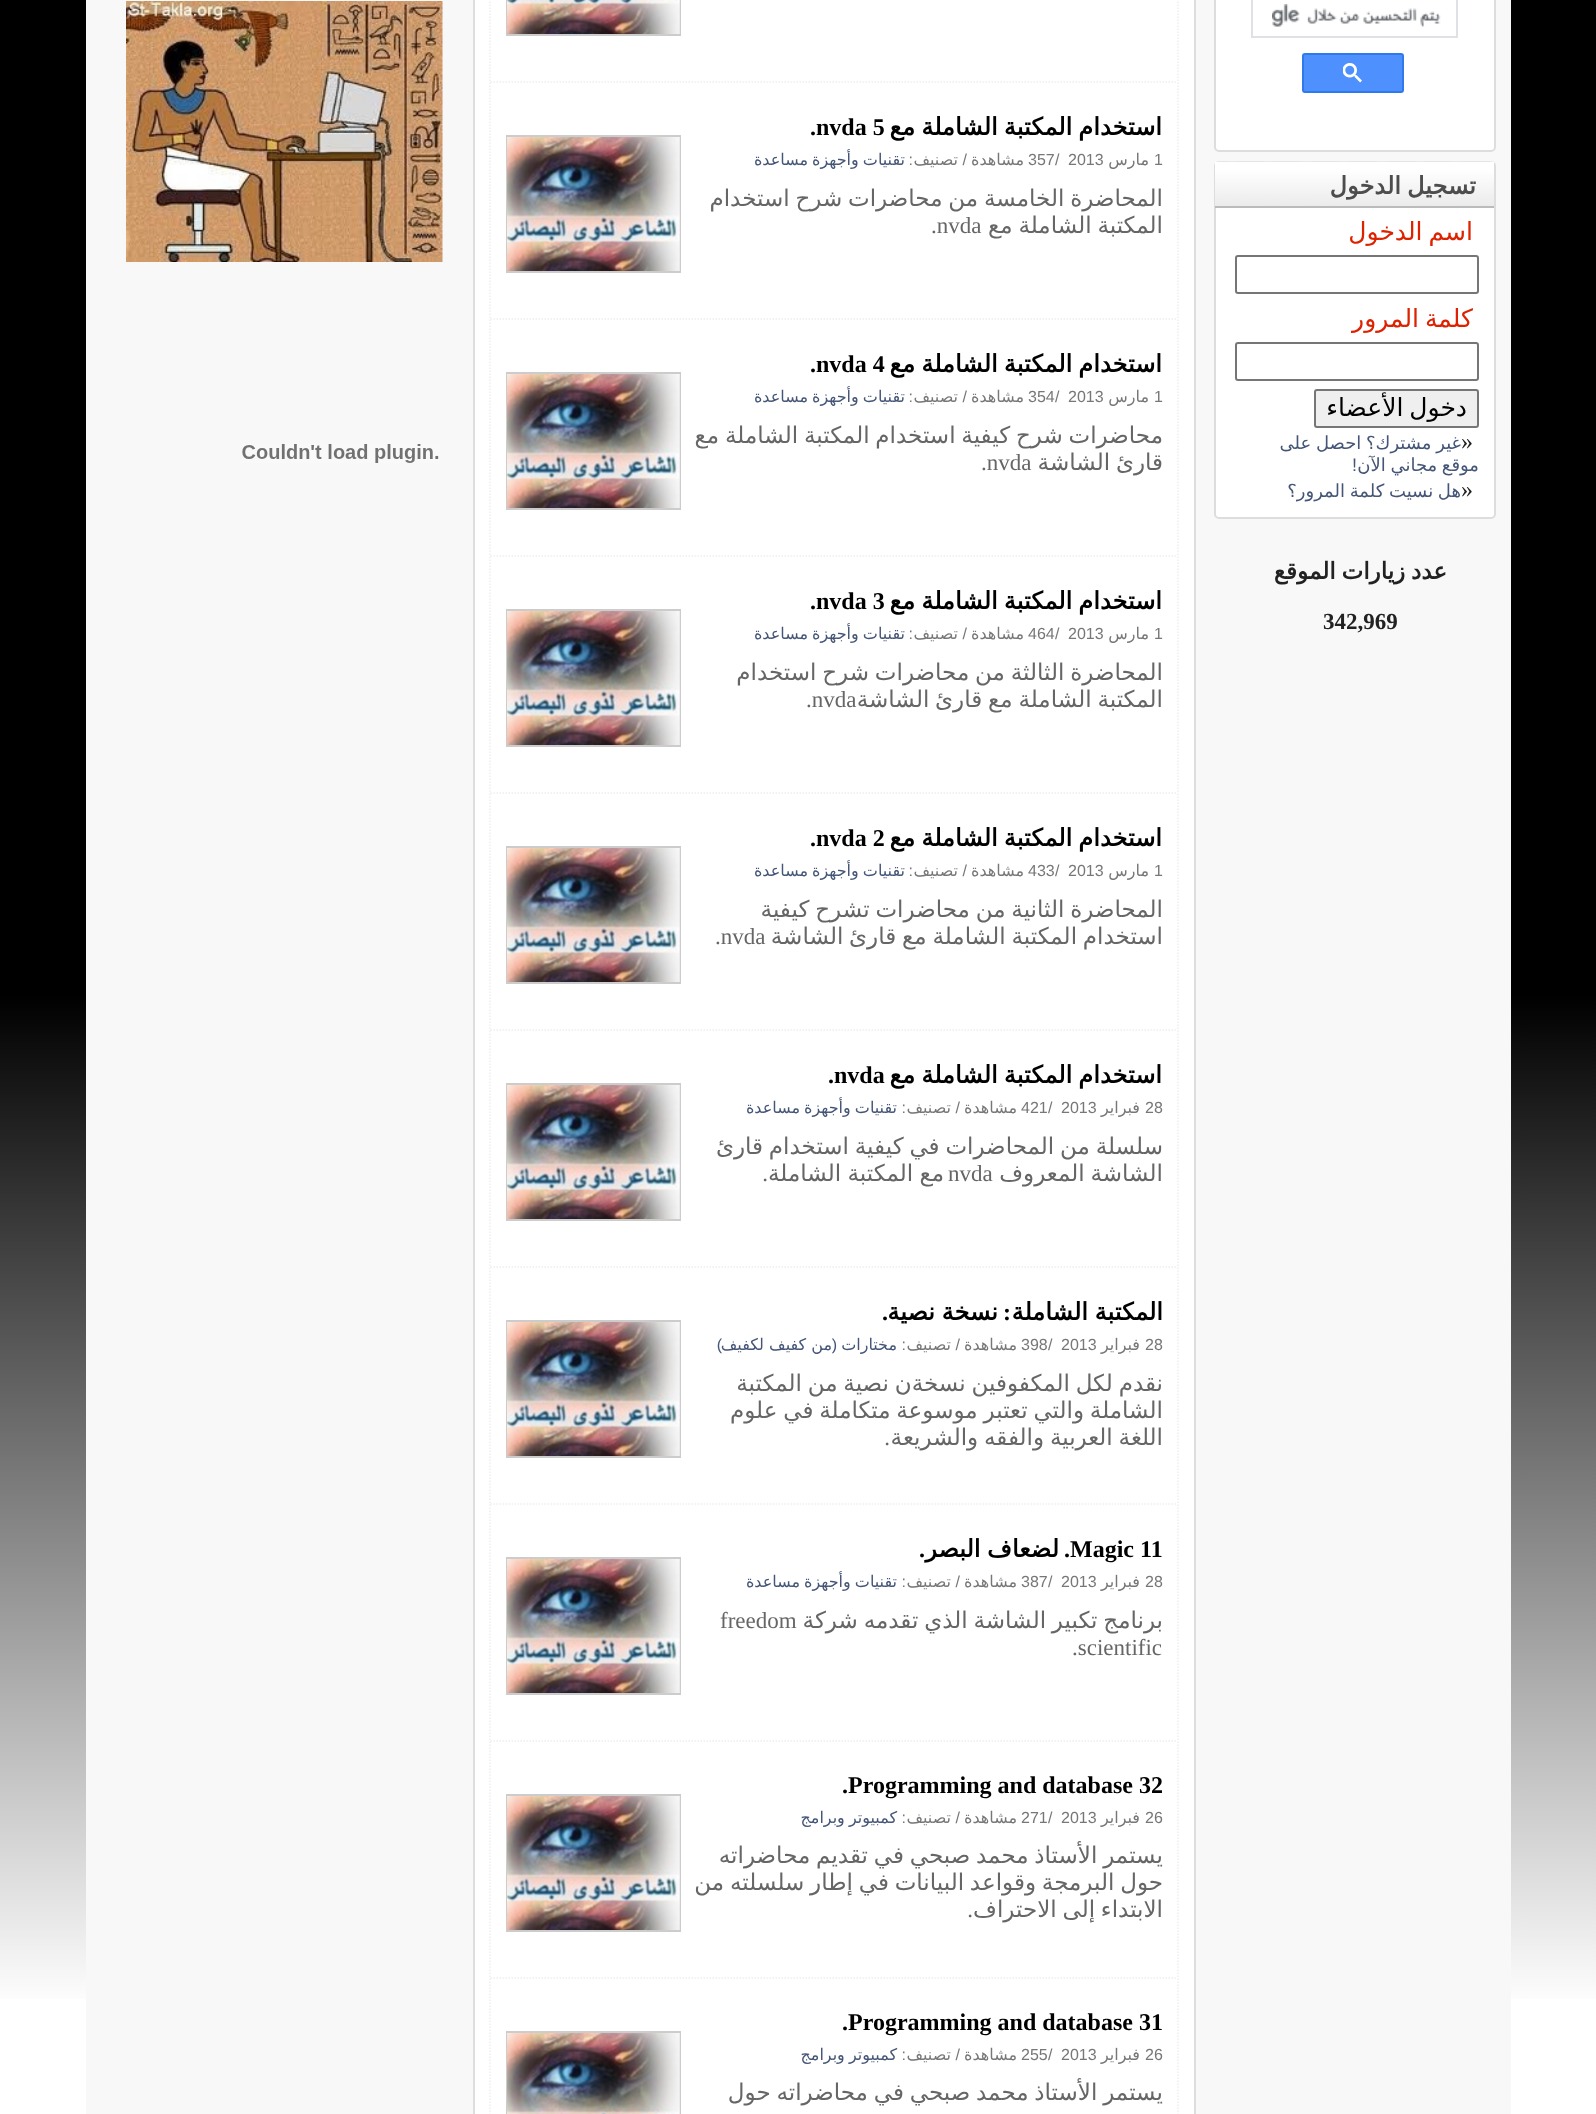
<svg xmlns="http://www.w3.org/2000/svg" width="1596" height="2114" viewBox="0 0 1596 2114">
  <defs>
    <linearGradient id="g1" gradientUnits="userSpaceOnUse" x1="0" y1="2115" x2="0" y2="0"><stop offset="0.05" stop-color="rgb(255,255,255)"/><stop offset="0.53" stop-color="rgb(0,0,0)"/></linearGradient>
  </defs>
  <rect width="100%" height="100%" fill="rgb(255,255,255)"/>
  <rect x="0" y="0" width="1596" height="1999" fill="url(#g1)"/>
  <rect x="86" y="0" width="1425" height="2114" fill="rgb(248,248,248)"/>
  <rect x="1215" y="-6" width="280" height="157" rx="4" fill="rgb(255,255,255)" stroke="rgb(221,221,221)" stroke-width="2"/>
  <rect x="1252" y="-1" width="205" height="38" fill="none" stroke="rgb(223,225,229)" stroke-width="2"/>
  <image x="1272" y="4" width="169" height="23" href="pic1.png"/>
  <rect x="1303" y="54" width="100" height="38" rx="2" fill="rgb(77,144,254)" stroke="rgb(48,121,237)" stroke-width="2"/>
  <image x="1343" y="63" width="19" height="20" href="pic2.png"/>
  <rect x="1215" y="162" width="280" height="356" rx="4" fill="rgb(255,255,255)" stroke="rgb(221,221,221)" stroke-width="2"/>
  <rect x="1215" y="169" width="279" height="37" fill="rgb(229,229,229)"/>
  <image x="1215" y="161" width="279" height="45" href="pic3.png"/>
  <rect x="1215" y="206" width="279" height="2" fill="rgb(187,187,187)"/>
  <text x="1476" y="194" word-spacing="-1.5" font-family="DejaVu Sans" font-size="24" font-weight="bold" direction="rtl" fill="rgb(77,77,77)">تسجيل الدخول</text>
  <text x="1473" y="240" word-spacing="-2" font-family="DejaVu Sans" font-size="25" direction="rtl" fill="rgb(221,34,0)">اسم الدخول</text>
  <rect x="1236" y="256" width="242" height="37" rx="2" fill="none" stroke="rgb(118,118,118)" stroke-width="2"/>
  <text x="1473" y="327" word-spacing="-2" font-family="DejaVu Sans" font-size="25" direction="rtl" fill="rgb(221,34,0)">كلمة المرور</text>
  <rect x="1236" y="343" width="242" height="37" rx="2" fill="none" stroke="rgb(118,118,118)" stroke-width="2"/>
  <rect x="1315" y="390" width="163" height="37" rx="2" fill="rgb(239,239,239)" stroke="rgb(118,118,118)" stroke-width="2"/>
  <text x="1467" y="416" word-spacing="-2" font-family="DejaVu Sans" font-size="25" direction="rtl" fill="rgb(0,0,0)">دخول الأعضاء</text>
  <text x="1461" y="449" font-family="Liberation Serif" font-size="24" fill="rgb(34,34,34)">»</text>
  <g font-family="DejaVu Sans" font-size="18" direction="rtl" fill="rgb(68,85,119)">
    <text x="1461" y="449" word-spacing="-1">غير مشترك؟ احصل على</text>
    <text x="1479" y="471" word-spacing="-1">موقع مجاني الآن</text>
  </g>
  <text x="1357" y="471" font-family="Liberation Sans" font-size="18" direction="rtl" fill="rgb(68,85,119)">!</text>
  <text x="1461" y="497" font-family="Liberation Serif" font-size="24" fill="rgb(34,34,34)">»</text>
  <text x="1461" y="497" word-spacing="-1" font-family="DejaVu Sans" font-size="18" direction="rtl" fill="rgb(68,85,119)">هل نسيت كلمة المرور؟</text>
  <text x="1447" y="579" word-spacing="-1.5" font-family="DejaVu Sans" font-size="23" font-weight="bold" direction="rtl" fill="rgb(34,34,34)">عدد زيارات الموقع</text>
  <text x="1323" y="629" font-family="Liberation Serif" font-size="23" font-weight="bold" fill="rgb(34,34,34)">342,969</text>
  <rect x="474" y="-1" width="721" height="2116" fill="rgb(255,255,255)" stroke="rgb(221,221,221)" stroke-width="2"/>
  <path d="M1178-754.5V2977.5" fill="none" stroke="rgb(238,238,238)" stroke-width="1.5" stroke-dasharray="1.5 1.5"/>
  <path d="M490-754.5V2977.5" fill="none" stroke="rgb(238,238,238)" stroke-width="1.5" stroke-dasharray="1.5 1.5"/>
  <path d="M490.5 82H1177.5" fill="none" stroke="rgb(238,238,238)" stroke-width="1.5" stroke-dasharray="1.5 1.5"/>
  <rect x="507" y="-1" width="173" height="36" fill="none" stroke="rgb(204,204,204)" stroke-width="2"/>
  <image x="507" y="0" width="173" height="34" href="pic4.png"/>
  <path d="M490.5 319H1177.5" fill="none" stroke="rgb(238,238,238)" stroke-width="1.5" stroke-dasharray="1.5 1.5"/>
  <text x="1162" y="135" word-spacing="-1.5" font-family="DejaVu Sans" font-size="24" font-weight="bold" direction="rtl" fill="rgb(0,0,0)">استخدام المكتبة الشاملة مع</text>
  <text x="810" y="135" font-family="Liberation Serif" font-size="24" font-weight="bold" fill="rgb(0,0,0)">.nvda 5</text>
  <text x="1154" y="165" font-family="Liberation Sans" font-size="16" fill="rgb(119,119,119)">1</text>
  <text x="1149" y="165" font-family="DejaVu Sans" font-size="16" direction="rtl" fill="rgb(119,119,119)">مارس</text>
  <g font-family="Liberation Sans" font-size="16" fill="rgb(119,119,119)">
    <text x="1068" y="165">2013</text>
    <text x="1055" y="165">/</text>
    <text x="1028" y="165">357</text>
  </g>
  <text x="1024" y="165" font-family="DejaVu Sans" font-size="16" direction="rtl" fill="rgb(119,119,119)">مشاهدة</text>
  <text x="967" y="165" font-family="Liberation Sans" font-size="16" direction="rtl" fill="rgb(119,119,119)">/</text>
  <text x="958" y="165" font-family="DejaVu Sans" font-size="16" direction="rtl" fill="rgb(119,119,119)">تصنيف</text>
  <text x="913" y="165" font-family="Liberation Sans" font-size="16" direction="rtl" fill="rgb(119,119,119)">:</text>
  <text x="905" y="165" word-spacing="-1" font-family="DejaVu Sans" font-size="16" direction="rtl" fill="rgb(68,85,119)">تقنيات وأجهزة مساعدة</text>
  <rect x="507" y="136" width="173" height="136" fill="none" stroke="rgb(204,204,204)" stroke-width="2"/>
  <image x="507" y="137" width="173" height="134" href="pic5.png"/>
  <g font-family="DejaVu Sans" font-size="23" direction="rtl" fill="rgb(102,102,102)">
    <text>
      <tspan x="1163" y="206" word-spacing="-1.5">المحاضرة الخامسة من محاضرات شرح استخدام</tspan>
      <tspan x="1163" y="233" word-spacing="-1.5">المكتبة الشاملة مع</tspan>
    </text>
  </g>
  <text x="931" y="233" font-family="Liberation Serif" font-size="23" fill="rgb(102,102,102)">.nvda</text>
  <path d="M490.5 556H1177.5" fill="none" stroke="rgb(238,238,238)" stroke-width="1.5" stroke-dasharray="1.5 1.5"/>
  <text x="1162" y="372" word-spacing="-1.5" font-family="DejaVu Sans" font-size="24" font-weight="bold" direction="rtl" fill="rgb(0,0,0)">استخدام المكتبة الشاملة مع</text>
  <text x="810" y="372" font-family="Liberation Serif" font-size="24" font-weight="bold" fill="rgb(0,0,0)">.nvda 4</text>
  <text x="1154" y="402" font-family="Liberation Sans" font-size="16" fill="rgb(119,119,119)">1</text>
  <text x="1149" y="402" font-family="DejaVu Sans" font-size="16" direction="rtl" fill="rgb(119,119,119)">مارس</text>
  <g font-family="Liberation Sans" font-size="16" fill="rgb(119,119,119)">
    <text x="1068" y="402">2013</text>
    <text x="1055" y="402">/</text>
    <text x="1028" y="402">354</text>
  </g>
  <text x="1024" y="402" font-family="DejaVu Sans" font-size="16" direction="rtl" fill="rgb(119,119,119)">مشاهدة</text>
  <text x="967" y="402" font-family="Liberation Sans" font-size="16" direction="rtl" fill="rgb(119,119,119)">/</text>
  <text x="958" y="402" font-family="DejaVu Sans" font-size="16" direction="rtl" fill="rgb(119,119,119)">تصنيف</text>
  <text x="913" y="402" font-family="Liberation Sans" font-size="16" direction="rtl" fill="rgb(119,119,119)">:</text>
  <text x="905" y="402" word-spacing="-1" font-family="DejaVu Sans" font-size="16" direction="rtl" fill="rgb(68,85,119)">تقنيات وأجهزة مساعدة</text>
  <rect x="507" y="373" width="173" height="136" fill="none" stroke="rgb(204,204,204)" stroke-width="2"/>
  <image x="507" y="374" width="173" height="134" href="pic5.png"/>
  <g font-family="DejaVu Sans" font-size="23" direction="rtl" fill="rgb(102,102,102)">
    <text>
      <tspan x="1163" y="443" word-spacing="-1.5">محاضرات شرح كيفية استخدام المكتبة الشاملة مع</tspan>
      <tspan x="1163" y="470" word-spacing="-1.5">قارئ الشاشة</tspan>
    </text>
  </g>
  <text x="981" y="470" font-family="Liberation Serif" font-size="23" fill="rgb(102,102,102)">.nvda</text>
  <path d="M490.5 793H1177.5" fill="none" stroke="rgb(238,238,238)" stroke-width="1.5" stroke-dasharray="1.5 1.5"/>
  <text x="1162" y="609" word-spacing="-1.5" font-family="DejaVu Sans" font-size="24" font-weight="bold" direction="rtl" fill="rgb(0,0,0)">استخدام المكتبة الشاملة مع</text>
  <text x="810" y="609" font-family="Liberation Serif" font-size="24" font-weight="bold" fill="rgb(0,0,0)">.nvda 3</text>
  <text x="1154" y="639" font-family="Liberation Sans" font-size="16" fill="rgb(119,119,119)">1</text>
  <text x="1149" y="639" font-family="DejaVu Sans" font-size="16" direction="rtl" fill="rgb(119,119,119)">مارس</text>
  <g font-family="Liberation Sans" font-size="16" fill="rgb(119,119,119)">
    <text x="1068" y="639">2013</text>
    <text x="1055" y="639">/</text>
    <text x="1028" y="639">464</text>
  </g>
  <text x="1024" y="639" font-family="DejaVu Sans" font-size="16" direction="rtl" fill="rgb(119,119,119)">مشاهدة</text>
  <text x="967" y="639" font-family="Liberation Sans" font-size="16" direction="rtl" fill="rgb(119,119,119)">/</text>
  <text x="958" y="639" font-family="DejaVu Sans" font-size="16" direction="rtl" fill="rgb(119,119,119)">تصنيف</text>
  <text x="913" y="639" font-family="Liberation Sans" font-size="16" direction="rtl" fill="rgb(119,119,119)">:</text>
  <text x="905" y="639" word-spacing="-1" font-family="DejaVu Sans" font-size="16" direction="rtl" fill="rgb(68,85,119)">تقنيات وأجهزة مساعدة</text>
  <rect x="507" y="610" width="173" height="136" fill="none" stroke="rgb(204,204,204)" stroke-width="2"/>
  <image x="507" y="611" width="173" height="134" href="pic5.png"/>
  <g font-family="DejaVu Sans" font-size="23" direction="rtl" fill="rgb(102,102,102)">
    <text>
      <tspan x="1163" y="680" word-spacing="-1.5">المحاضرة الثالثة من محاضرات شرح استخدام</tspan>
      <tspan x="1163" y="707" word-spacing="-1.5">المكتبة الشاملة مع قارئ الشاشة</tspan>
    </text>
  </g>
  <text x="806" y="707" font-family="Liberation Serif" font-size="23" fill="rgb(102,102,102)">.nvda</text>
  <path d="M490.5 1030H1177.5" fill="none" stroke="rgb(238,238,238)" stroke-width="1.5" stroke-dasharray="1.5 1.5"/>
  <text x="1162" y="846" word-spacing="-1.5" font-family="DejaVu Sans" font-size="24" font-weight="bold" direction="rtl" fill="rgb(0,0,0)">استخدام المكتبة الشاملة مع</text>
  <text x="810" y="846" font-family="Liberation Serif" font-size="24" font-weight="bold" fill="rgb(0,0,0)">.nvda 2</text>
  <text x="1154" y="876" font-family="Liberation Sans" font-size="16" fill="rgb(119,119,119)">1</text>
  <text x="1149" y="876" font-family="DejaVu Sans" font-size="16" direction="rtl" fill="rgb(119,119,119)">مارس</text>
  <g font-family="Liberation Sans" font-size="16" fill="rgb(119,119,119)">
    <text x="1068" y="876">2013</text>
    <text x="1055" y="876">/</text>
    <text x="1028" y="876">433</text>
  </g>
  <text x="1024" y="876" font-family="DejaVu Sans" font-size="16" direction="rtl" fill="rgb(119,119,119)">مشاهدة</text>
  <text x="967" y="876" font-family="Liberation Sans" font-size="16" direction="rtl" fill="rgb(119,119,119)">/</text>
  <text x="958" y="876" font-family="DejaVu Sans" font-size="16" direction="rtl" fill="rgb(119,119,119)">تصنيف</text>
  <text x="913" y="876" font-family="Liberation Sans" font-size="16" direction="rtl" fill="rgb(119,119,119)">:</text>
  <text x="905" y="876" word-spacing="-1" font-family="DejaVu Sans" font-size="16" direction="rtl" fill="rgb(68,85,119)">تقنيات وأجهزة مساعدة</text>
  <rect x="507" y="847" width="173" height="136" fill="none" stroke="rgb(204,204,204)" stroke-width="2"/>
  <image x="507" y="848" width="173" height="134" href="pic5.png"/>
  <g font-family="DejaVu Sans" font-size="23" direction="rtl" fill="rgb(102,102,102)">
    <text>
      <tspan x="1163" y="917" word-spacing="-1.5">المحاضرة الثانية من محاضرات تشرح كيفية</tspan>
      <tspan x="1163" y="944" word-spacing="-1.5">استخدام المكتبة الشاملة مع قارئ الشاشة</tspan>
    </text>
  </g>
  <text x="715" y="944" font-family="Liberation Serif" font-size="23" fill="rgb(102,102,102)">.nvda</text>
  <path d="M490.5 1267H1177.5" fill="none" stroke="rgb(238,238,238)" stroke-width="1.5" stroke-dasharray="1.5 1.5"/>
  <text x="1162" y="1083" word-spacing="-1.5" font-family="DejaVu Sans" font-size="24" font-weight="bold" direction="rtl" fill="rgb(0,0,0)">استخدام المكتبة الشاملة مع</text>
  <text x="828" y="1083" font-family="Liberation Serif" font-size="24" font-weight="bold" fill="rgb(0,0,0)">.nvda</text>
  <text x="1145" y="1113" font-family="Liberation Sans" font-size="16" fill="rgb(119,119,119)">28</text>
  <text x="1140" y="1113" font-family="DejaVu Sans" font-size="16" direction="rtl" fill="rgb(119,119,119)">فبراير</text>
  <g font-family="Liberation Sans" font-size="16" fill="rgb(119,119,119)">
    <text x="1061" y="1113">2013</text>
    <text x="1048" y="1113">/</text>
    <text x="1021" y="1113">421</text>
  </g>
  <text x="1017" y="1113" font-family="DejaVu Sans" font-size="16" direction="rtl" fill="rgb(119,119,119)">مشاهدة</text>
  <text x="960" y="1113" font-family="Liberation Sans" font-size="16" direction="rtl" fill="rgb(119,119,119)">/</text>
  <text x="951" y="1113" font-family="DejaVu Sans" font-size="16" direction="rtl" fill="rgb(119,119,119)">تصنيف</text>
  <text x="906" y="1113" font-family="Liberation Sans" font-size="16" direction="rtl" fill="rgb(119,119,119)">:</text>
  <text x="897" y="1113" word-spacing="-1" font-family="DejaVu Sans" font-size="16" direction="rtl" fill="rgb(68,85,119)">تقنيات وأجهزة مساعدة</text>
  <rect x="507" y="1084" width="173" height="136" fill="none" stroke="rgb(204,204,204)" stroke-width="2"/>
  <image x="507" y="1085" width="173" height="134" href="pic5.png"/>
  <g font-family="DejaVu Sans" font-size="23" direction="rtl" fill="rgb(102,102,102)">
    <text>
      <tspan x="1163" y="1154" word-spacing="-1.5">سلسلة من المحاضرات في كيفية استخدام قارئ</tspan>
      <tspan x="1163" y="1181" word-spacing="-1.5">الشاشة المعروف</tspan>
    </text>
  </g>
  <text x="948" y="1181" font-family="Liberation Serif" font-size="23" fill="rgb(102,102,102)">nvda</text>
  <text x="944" y="1181" word-spacing="-1" font-family="DejaVu Sans" font-size="23" direction="rtl" fill="rgb(102,102,102)">مع المكتبة الشاملة</text>
  <text x="768" y="1181" font-family="Liberation Serif" font-size="23" direction="rtl" fill="rgb(102,102,102)">.</text>
  <path d="M490.5 1504H1177.5" fill="none" stroke="rgb(238,238,238)" stroke-width="1.5" stroke-dasharray="1.5 1.5"/>
  <text x="1163" y="1320" word-spacing="-1" font-family="DejaVu Sans" font-size="24" font-weight="bold" direction="rtl" fill="rgb(0,0,0)">المكتبة الشاملة</text>
  <text x="1011" y="1320" font-family="Liberation Serif" font-size="24" font-weight="bold" direction="rtl" fill="rgb(0,0,0)">:</text>
  <text x="998" y="1320" word-spacing="-1" font-family="DejaVu Sans" font-size="24" font-weight="bold" direction="rtl" fill="rgb(0,0,0)">نسخة نصية</text>
  <text x="888" y="1320" font-family="Liberation Serif" font-size="24" font-weight="bold" direction="rtl" fill="rgb(0,0,0)">.</text>
  <text x="1145" y="1350" font-family="Liberation Sans" font-size="16" fill="rgb(119,119,119)">28</text>
  <text x="1140" y="1350" font-family="DejaVu Sans" font-size="16" direction="rtl" fill="rgb(119,119,119)">فبراير</text>
  <g font-family="Liberation Sans" font-size="16" fill="rgb(119,119,119)">
    <text x="1061" y="1350">2013</text>
    <text x="1048" y="1350">/</text>
    <text x="1021" y="1350">398</text>
  </g>
  <text x="1017" y="1350" font-family="DejaVu Sans" font-size="16" direction="rtl" fill="rgb(119,119,119)">مشاهدة</text>
  <text x="960" y="1350" font-family="Liberation Sans" font-size="16" direction="rtl" fill="rgb(119,119,119)">/</text>
  <text x="951" y="1350" font-family="DejaVu Sans" font-size="16" direction="rtl" fill="rgb(119,119,119)">تصنيف</text>
  <text x="906" y="1350" font-family="Liberation Sans" font-size="16" direction="rtl" fill="rgb(119,119,119)">:</text>
  <text x="897" y="1350" font-family="DejaVu Sans" font-size="16" direction="rtl" fill="rgb(68,85,119)">مختارات</text>
  <text x="837" y="1350" font-family="Liberation Sans" font-size="16" direction="rtl" fill="rgb(68,85,119)">(</text>
  <text x="832" y="1350" font-family="DejaVu Sans" font-size="16" direction="rtl" fill="rgb(68,85,119)">من كفيف لكفيف</text>
  <text x="722" y="1350" font-family="Liberation Sans" font-size="16" direction="rtl" fill="rgb(68,85,119)">)</text>
  <rect x="507" y="1321" width="173" height="136" fill="none" stroke="rgb(204,204,204)" stroke-width="2"/>
  <image x="507" y="1322" width="173" height="134" href="pic5.png"/>
  <g font-family="DejaVu Sans" font-size="23" direction="rtl" fill="rgb(102,102,102)">
    <text>
      <tspan x="1163" y="1391" word-spacing="-1.5">نقدم لكل المكفوفين نسخةن نصية من المكتبة</tspan>
      <tspan x="1163" y="1418" word-spacing="-1.5">الشاملة والتي تعتبر موسوعة متكاملة في علوم</tspan>
      <tspan x="1163" y="1445" word-spacing="-1.5">اللغة العربية والفقه والشريعة</tspan>
    </text>
  </g>
  <text x="890" y="1445" font-family="Liberation Serif" font-size="23" direction="rtl" fill="rgb(102,102,102)">.</text>
  <path d="M490.5 1741H1177.5" fill="none" stroke="rgb(238,238,238)" stroke-width="1.5" stroke-dasharray="1.5 1.5"/>
  <text x="1070" y="1557" font-family="Liberation Serif" font-size="24" font-weight="bold" fill="rgb(0,0,0)">Magic 11</text>
  <g font-family="Liberation Serif" font-size="24" font-weight="bold" direction="rtl" fill="rgb(0,0,0)">
    <text x="1070" y="1557">.</text>
    <text x="925" y="1557">.</text>
  </g>
  <text x="1059" y="1557" word-spacing="-1" font-family="DejaVu Sans" font-size="24" font-weight="bold" direction="rtl" fill="rgb(0,0,0)">لضعاف البصر</text>
  <text x="1145" y="1587" font-family="Liberation Sans" font-size="16" fill="rgb(119,119,119)">28</text>
  <text x="1140" y="1587" font-family="DejaVu Sans" font-size="16" direction="rtl" fill="rgb(119,119,119)">فبراير</text>
  <g font-family="Liberation Sans" font-size="16" fill="rgb(119,119,119)">
    <text x="1061" y="1587">2013</text>
    <text x="1048" y="1587">/</text>
    <text x="1021" y="1587">387</text>
  </g>
  <text x="1017" y="1587" font-family="DejaVu Sans" font-size="16" direction="rtl" fill="rgb(119,119,119)">مشاهدة</text>
  <text x="960" y="1587" font-family="Liberation Sans" font-size="16" direction="rtl" fill="rgb(119,119,119)">/</text>
  <text x="951" y="1587" font-family="DejaVu Sans" font-size="16" direction="rtl" fill="rgb(119,119,119)">تصنيف</text>
  <text x="906" y="1587" font-family="Liberation Sans" font-size="16" direction="rtl" fill="rgb(119,119,119)">:</text>
  <text x="897" y="1587" word-spacing="-1" font-family="DejaVu Sans" font-size="16" direction="rtl" fill="rgb(68,85,119)">تقنيات وأجهزة مساعدة</text>
  <rect x="507" y="1558" width="173" height="136" fill="none" stroke="rgb(204,204,204)" stroke-width="2"/>
  <image x="507" y="1559" width="173" height="134" href="pic5.png"/>
  <text x="1163" y="1628" word-spacing="-1.5" font-family="DejaVu Sans" font-size="23" direction="rtl" fill="rgb(102,102,102)">برنامج تكبير الشاشة الذي تقدمه شركة</text>
  <g font-family="Liberation Serif" font-size="23" fill="rgb(102,102,102)">
    <text x="720" y="1628">freedom</text>
    <text x="1072" y="1655">.scientific</text>
  </g>
  <path d="M490.5 1978H1177.5" fill="none" stroke="rgb(238,238,238)" stroke-width="1.5" stroke-dasharray="1.5 1.5"/>
  <text x="842" y="1793" font-family="Liberation Serif" font-size="24" font-weight="bold" fill="rgb(0,0,0)">.Programming and database 32</text>
  <text x="1145" y="1823" font-family="Liberation Sans" font-size="16" fill="rgb(119,119,119)">26</text>
  <text x="1140" y="1823" font-family="DejaVu Sans" font-size="16" direction="rtl" fill="rgb(119,119,119)">فبراير</text>
  <g font-family="Liberation Sans" font-size="16" fill="rgb(119,119,119)">
    <text x="1061" y="1823">2013</text>
    <text x="1048" y="1823">/</text>
    <text x="1021" y="1823">271</text>
  </g>
  <text x="1017" y="1823" font-family="DejaVu Sans" font-size="16" direction="rtl" fill="rgb(119,119,119)">مشاهدة</text>
  <text x="960" y="1823" font-family="Liberation Sans" font-size="16" direction="rtl" fill="rgb(119,119,119)">/</text>
  <text x="951" y="1823" font-family="DejaVu Sans" font-size="16" direction="rtl" fill="rgb(119,119,119)">تصنيف</text>
  <text x="906" y="1823" font-family="Liberation Sans" font-size="16" direction="rtl" fill="rgb(119,119,119)">:</text>
  <text x="897" y="1823" word-spacing="-1" font-family="DejaVu Sans" font-size="16" direction="rtl" fill="rgb(68,85,119)">كمبيوتر وبرامج</text>
  <rect x="507" y="1795" width="173" height="136" fill="none" stroke="rgb(204,204,204)" stroke-width="2"/>
  <image x="507" y="1796" width="173" height="134" href="pic5.png"/>
  <g font-family="DejaVu Sans" font-size="23" direction="rtl" fill="rgb(102,102,102)">
    <text>
      <tspan x="1163" y="1863" word-spacing="-1.5">يستمر الأستاذ محمد صبحي في تقديم محاضراته</tspan>
      <tspan x="1163" y="1890" word-spacing="-1.5">حول البرمجة وقواعد البيانات في إطار سلسلته من</tspan>
      <tspan x="1163" y="1917" word-spacing="-1.5">الابتداء إلى الاحتراف</tspan>
    </text>
  </g>
  <text x="973" y="1917" font-family="Liberation Serif" font-size="23" direction="rtl" fill="rgb(102,102,102)">.</text>
  <text x="842" y="2030" font-family="Liberation Serif" font-size="24" font-weight="bold" fill="rgb(0,0,0)">.Programming and database 31</text>
  <text x="1145" y="2060" font-family="Liberation Sans" font-size="16" fill="rgb(119,119,119)">26</text>
  <text x="1140" y="2060" font-family="DejaVu Sans" font-size="16" direction="rtl" fill="rgb(119,119,119)">فبراير</text>
  <g font-family="Liberation Sans" font-size="16" fill="rgb(119,119,119)">
    <text x="1061" y="2060">2013</text>
    <text x="1048" y="2060">/</text>
    <text x="1021" y="2060">255</text>
  </g>
  <text x="1017" y="2060" font-family="DejaVu Sans" font-size="16" direction="rtl" fill="rgb(119,119,119)">مشاهدة</text>
  <text x="960" y="2060" font-family="Liberation Sans" font-size="16" direction="rtl" fill="rgb(119,119,119)">/</text>
  <text x="951" y="2060" font-family="DejaVu Sans" font-size="16" direction="rtl" fill="rgb(119,119,119)">تصنيف</text>
  <text x="906" y="2060" font-family="Liberation Sans" font-size="16" direction="rtl" fill="rgb(119,119,119)">:</text>
  <text x="897" y="2060" word-spacing="-1" font-family="DejaVu Sans" font-size="16" direction="rtl" fill="rgb(68,85,119)">كمبيوتر وبرامج</text>
  <rect x="507" y="2032" width="173" height="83" fill="none" stroke="rgb(204,204,204)" stroke-width="2"/>
  <image x="507" y="2033" width="173" height="81" href="pic6.png"/>
  <text x="1163" y="2100" word-spacing="-1.5" font-family="DejaVu Sans" font-size="23" direction="rtl" fill="rgb(102,102,102)">يستمر الأستاذ محمد صبحي في محاضراته حول</text>
  <image x="126" y="1" width="317" height="261" href="pic7.png"/>
  <image x="242" y="444" width="197" height="19" href="pic8.png"/>
</svg>
